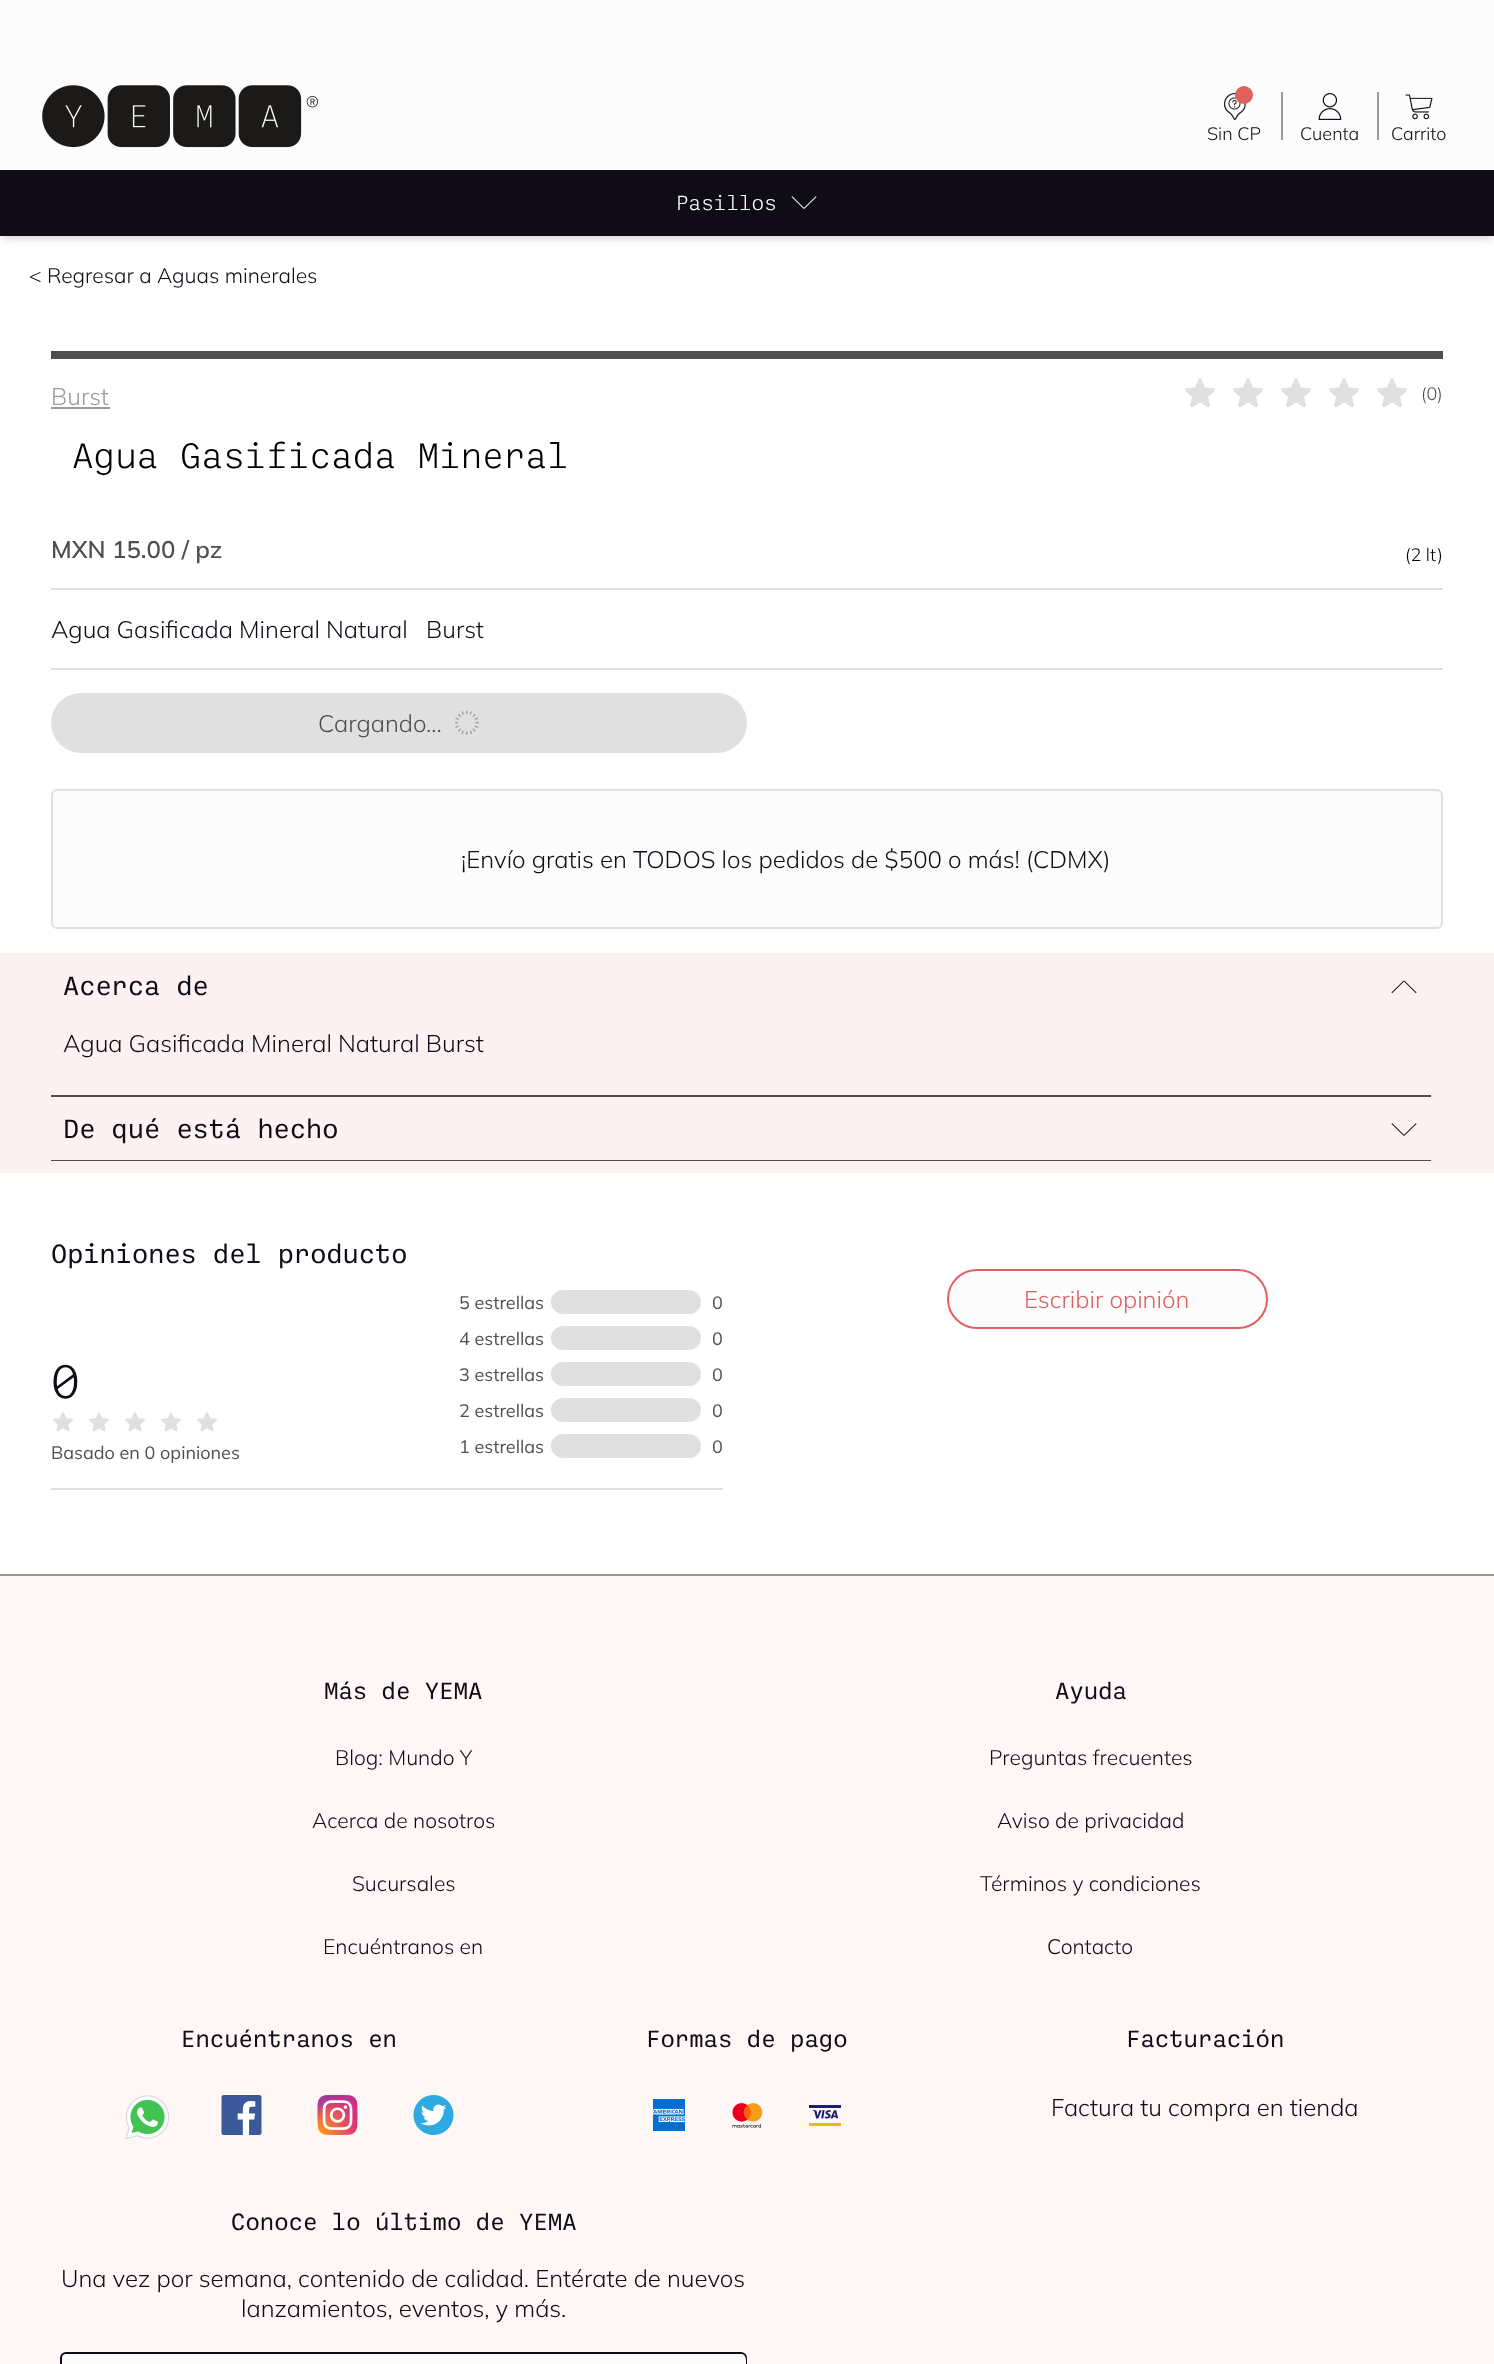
<svg xmlns="http://www.w3.org/2000/svg" xmlns:xlink="http://www.w3.org/1999/xlink" width="1494" height="2364" viewBox="0 0 1494 2364">
<style>
.cls-1{font:300 18px Mulish;fill:#100c17}
.cls-2{font:300 21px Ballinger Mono;fill:#fcfcfc}
.cls-3{font:300 21px Mulish;fill:#100c17}
.cls-4{font:300 24px Mulish;fill:#9a9a9a}
.cls-5{font:300 18px Mulish;fill:#4f4f4f}
.cls-6{font:300 36px Ballinger Mono;fill:#000000}
.cls-7{font:600 24px Mulish;fill:#4f4f4f}
.cls-8{font:300 18px Mulish;fill:#000000}
.cls-9{font:300 24px Mulish;fill:#100c17}
.cls-10{font:300 24px Mulish;fill:#4f4f4f}
.cls-11{font:27px Ballinger Mono;fill:#100c17}
.cls-12{font:300 48px Ballinger Mono;fill:#100c17}
.cls-13{font:18px Mulish;fill:#4f4f4f}
.cls-14{font:300 24px Mulish;fill:#e06060}
.cls-15{font:24px Ballinger Mono;fill:#100c17}
</style>
<rect width="100%" height="100%" fill="#ffffff"/>
<rect fill="#000000" fill-opacity="0.1" filter="blur(3px)" x="3" y="6" width="1488" height="230"/>
<rect fill="#000000" fill-opacity="0.1" filter="blur(4.5px)" x="2" y="8" width="1491" height="232"/>
<rect fill="#fcfcfc" x="0" y="2" width="1494" height="168"/>
<image xlink:href="image0.png" x="42" y="85" width="276" height="63"/>
<image xlink:href="image1.png" x="1224" y="93" width="22" height="27"/>
<circle fill="#e06060" cx="1244" cy="95" r="9"/>
<rect fill="#9a9a9a" x="1281" y="92" width="2" height="48"/>
<image xlink:href="image2.png" x="1318" y="93" width="24" height="27"/>
<rect fill="#9a9a9a" x="1377" y="92" width="2" height="48"/>
<image xlink:href="image3.png" x="1405" y="94" width="28" height="26"/>
<rect fill="#100c17" x="0" y="170" width="1494" height="66"/>
<image xlink:href="image4.png" x="791" y="196" width="26" height="13"/>
<rect fill="#4f4f4f" x="51" y="351" width="1392" height="8"/>
<rect fill="#9a9a9a" x="51" y="407" width="59" height="2"/>
<image xlink:href="image5.png" x="1185" y="378" width="30" height="29"/>
<image xlink:href="image5.png" x="1233" y="378" width="30" height="29"/>
<image xlink:href="image5.png" x="1281" y="378" width="30" height="29"/>
<image xlink:href="image5.png" x="1329" y="378" width="30" height="29"/>
<image xlink:href="image5.png" x="1377" y="378" width="30" height="29"/>
<rect fill="#e0e0e0" x="51" y="588" width="1392" height="2"/>
<rect fill="#e0e0e0" x="51" y="668" width="1392" height="2"/>
<rect fill="#e0e0e0" x="51" y="693" width="696" height="60" rx="30"/>
<image xlink:href="image6.png" x="455" y="710" width="24" height="25"/>
<rect fill="#fcfcfc" stroke="#e0e0e0" stroke-width="2" x="52" y="790" width="1390" height="138" rx="5"/>
<rect fill="#fdf2f1" x="0" y="953" width="1494" height="220"/>
<rect fill="#4f4f4f" x="51" y="1095" width="1380" height="2"/>
<image xlink:href="image7.png" x="1391" y="980" width="26" height="13"/>
<rect fill="#4f4f4f" x="51" y="1160" width="1380" height="1"/>
<image xlink:href="image8.png" x="1391" y="1123" width="26" height="13"/>
<image xlink:href="image9.png" x="53" y="1412" width="20" height="20"/>
<image xlink:href="image9.png" x="89" y="1412" width="20" height="20"/>
<image xlink:href="image9.png" x="125" y="1412" width="20" height="20"/>
<image xlink:href="image9.png" x="161" y="1412" width="20" height="20"/>
<image xlink:href="image9.png" x="197" y="1412" width="20" height="20"/>
<rect fill="#e0e0e0" x="551" y="1290" width="150" height="24" rx="12"/>
<rect fill="#e0e0e0" x="551" y="1326" width="150" height="24" rx="12"/>
<rect fill="#e0e0e0" x="551" y="1362" width="150" height="24" rx="12"/>
<rect fill="#e0e0e0" x="551" y="1398" width="150" height="24" rx="12"/>
<rect fill="#e0e0e0" x="551" y="1434" width="150" height="24" rx="12"/>
<rect fill="#e0e0e0" x="51" y="1488" width="672" height="2"/>
<rect fill="#fcfcfc" stroke="#e06060" stroke-width="2" x="948" y="1270" width="319" height="58" rx="29"/>
<rect fill="#fff7f6" x="0" y="1576" width="1494" height="788"/>
<rect fill="#9a9a9a" x="0" y="1574" width="1494" height="2"/>
<image xlink:href="image10.png" x="125" y="2095" width="45" height="44"/>
<image xlink:href="image11.png" x="221" y="2095" width="41" height="40"/>
<image xlink:href="image12.png" x="317" y="2095" width="41" height="40"/>
<image xlink:href="image13.png" x="413" y="2095" width="41" height="40"/>
<image xlink:href="image14.png" x="653" y="2099" width="32" height="32"/>
<image xlink:href="image15.png" x="732" y="2103" width="31" height="25"/>
<image xlink:href="image16.png" x="809" y="2105" width="32" height="21"/>
<rect fill="#fcfcfc" stroke="#100c17" stroke-width="2" x="61" y="2353" width="685" height="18" rx="5"/>
<rect fill="#fcfcfc" x="62" y="2354" width="684" height="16" rx="6"/>
<text class="cls-1" x="1207" y="140">Sin CP</text>
<text class="cls-1" x="1300" y="140">Cuenta</text>
<text class="cls-1" x="1391" y="140">Carrito</text>
<text class="cls-2" x="676" y="210">Pasillos</text>
<text class="cls-3" x="29" y="283">&lt; Regresar a Aguas minerales</text>
<text class="cls-4" x="51" y="405">Burst</text>
<text class="cls-5" x="1421" y="400">(0)</text>
<text class="cls-6" x="72" y="468">Agua Gasificada Mineral</text>
<text class="cls-7" x="51" y="558">MXN 15.00 / pz</text>
<text class="cls-8" x="1405" y="561">(2 lt)</text>
<text class="cls-9" xml:space="preserve" x="51" y="638">Agua Gasificada Mineral Natural   Burst</text>
<text class="cls-10" x="318" y="732">Cargando...</text>
<text class="cls-9" x="461" y="868">¡Envío gratis en TODOS los pedidos de $500 o más! (CDMX)</text>
<text class="cls-11" x="63" y="995">Acerca de</text>
<text class="cls-9" x="63" y="1052">Agua Gasificada Mineral Natural Burst</text>
<text class="cls-11" x="63" y="1138">De qué está hecho</text>
<text class="cls-11" x="51" y="1263">Opiniones del producto</text>
<text class="cls-12" x="51" y="1398">0</text>
<text class="cls-13" x="51" y="1459">Basado en 0 opiniones</text>
<text class="cls-13" x="459" y="1309">5 estrellas</text>
<text class="cls-13" x="712" y="1309">0</text>
<text class="cls-13" x="459" y="1345">4 estrellas</text>
<text class="cls-13" x="712" y="1345">0</text>
<text class="cls-13" x="459" y="1381">3 estrellas</text>
<text class="cls-13" x="712" y="1381">0</text>
<text class="cls-13" x="459" y="1417">2 estrellas</text>
<text class="cls-13" x="712" y="1417">0</text>
<text class="cls-13" x="459" y="1453">1 estrellas</text>
<text class="cls-13" x="712" y="1453">0</text>
<text class="cls-14" x="1024" y="1308">Escribir opinión</text>
<text class="cls-15" x="324" y="1699">Más de YEMA</text>
<text class="cls-3" x="335" y="1765">Blog: Mundo Y</text>
<text class="cls-3" x="312" y="1828">Acerca de nosotros</text>
<text class="cls-3" x="352" y="1891">Sucursales</text>
<text class="cls-3" x="323" y="1954">Encuéntranos en</text>
<text class="cls-15" x="1055" y="1699">Ayuda</text>
<text class="cls-3" x="989" y="1765">Preguntas frecuentes</text>
<text class="cls-3" x="997" y="1828">Aviso de privacidad</text>
<text class="cls-3" x="980" y="1891">Términos y condiciones</text>
<text class="cls-3" x="1047" y="1954">Contacto</text>
<text class="cls-15" x="181" y="2047">Encuéntranos en</text>
<text class="cls-15" x="646" y="2047">Formas de pago</text>
<text class="cls-15" x="1126" y="2047">Facturación</text>
<text class="cls-9" x="1051" y="2116">Factura tu compra en tienda</text>
<text class="cls-15" x="231" y="2230">Conoce lo último de YEMA</text>
<text class="cls-9" x="61" y="2287">Una vez por semana, contenido de calidad. Entérate de nuevos</text>
<text class="cls-9" x="241" y="2317">lanzamientos, eventos, y más.</text>
</svg>
